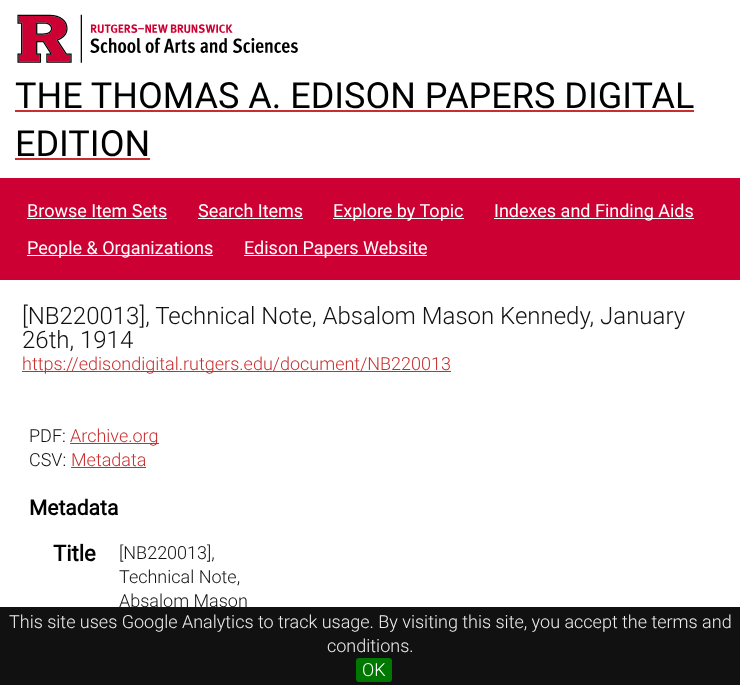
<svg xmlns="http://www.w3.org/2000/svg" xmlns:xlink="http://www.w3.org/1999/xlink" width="740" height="685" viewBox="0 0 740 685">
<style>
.cls-1{font:36px Roboto;fill:#000000}
.cls-2{font:18px Roboto;fill:#ffffff}
.cls-3{font:300 24px Roboto;fill:#111111}
.cls-4{font:300 18px Roboto;fill:#c72e2e}
.cls-5{font:300 18px Roboto;fill:#111111}
.cls-6{font:bold 21px Roboto;fill:#000000}
.cls-7{font:bold 22px Roboto;fill:#000000}
.cls-8{font:300 18px Roboto;fill:#eeeeee}
.cls-9{font:300 18px Roboto;fill:#ffffff}
</style>
<rect width="100%" height="100%" fill="#ffffff"/>
<image xlink:href="image0.png" x="17" y="14" width="281" height="49"/>
<rect fill="#c72e2e" x="15" y="110" width="679" height="2"/>
<rect fill="#c72e2e" x="15" y="158" width="135" height="2"/>
<rect fill="#cc0033" x="0" y="178" width="740" height="102"/>
<rect fill="#ffffff" x="27" y="218" width="140" height="1"/>
<rect fill="#ffffff" x="198" y="218" width="105" height="1"/>
<rect fill="#ffffff" x="333" y="218" width="131" height="1"/>
<rect fill="#ffffff" x="494" y="218" width="200" height="1"/>
<rect fill="#ffffff" x="27" y="255" width="186" height="1"/>
<rect fill="#ffffff" x="244" y="255" width="183" height="1"/>
<rect fill="#c72e2e" x="22" y="371" width="429" height="1"/>
<rect fill="#c72e2e" x="70" y="443" width="89" height="1"/>
<rect fill="#c72e2e" x="71" y="467" width="75" height="1"/>
<rect fill="#111111" x="0" y="607" width="740" height="78"/>
<rect fill="#007700" x="356" y="658" width="36" height="24" rx="3"/>
<text class="cls-1"><tspan x="15" y="108">THE THOMAS A. EDISON PAPERS DIGITAL</tspan><tspan x="15" y="156">EDITION</tspan></text>
<text class="cls-2" x="27" y="217">Browse Item Sets</text>
<text class="cls-2" x="198" y="217">Search Items</text>
<text class="cls-2" x="333" y="217">Explore by Topic</text>
<text class="cls-2" x="494" y="217">Indexes and Finding Aids</text>
<text class="cls-2" x="27" y="254">People &amp; Organizations</text>
<text class="cls-2" x="244" y="254">Edison Papers Website</text>
<text class="cls-3"><tspan x="22" y="324">[NB220013], Technical Note, Absalom Mason Kennedy, January</tspan><tspan x="22" y="348">26th, 1914</tspan></text>
<text class="cls-4" x="22" y="370">https://edisondigital.rutgers.edu/document/NB220013</text>
<text class="cls-5" x="29" y="442">PDF:</text>
<text class="cls-4" x="70" y="442">Archive.org</text>
<text class="cls-5" x="29" y="466">CSV:</text>
<text class="cls-4" x="71" y="466">Metadata</text>
<text class="cls-6" x="29" y="515">Metadata</text>
<text class="cls-7" x="53" y="561">Title</text>
<text class="cls-5"><tspan x="119" y="559">[NB220013],</tspan><tspan x="119" y="583">Technical Note,</tspan><tspan x="119" y="607">Absalom Mason</tspan></text>
<text class="cls-8" x="9" y="628">This site uses Google Analytics to track usage. By visiting this site, you accept the terms and</text>
<text class="cls-8" x="327" y="652">conditions.</text>
<text class="cls-9" x="362" y="676">OK</text>
</svg>
